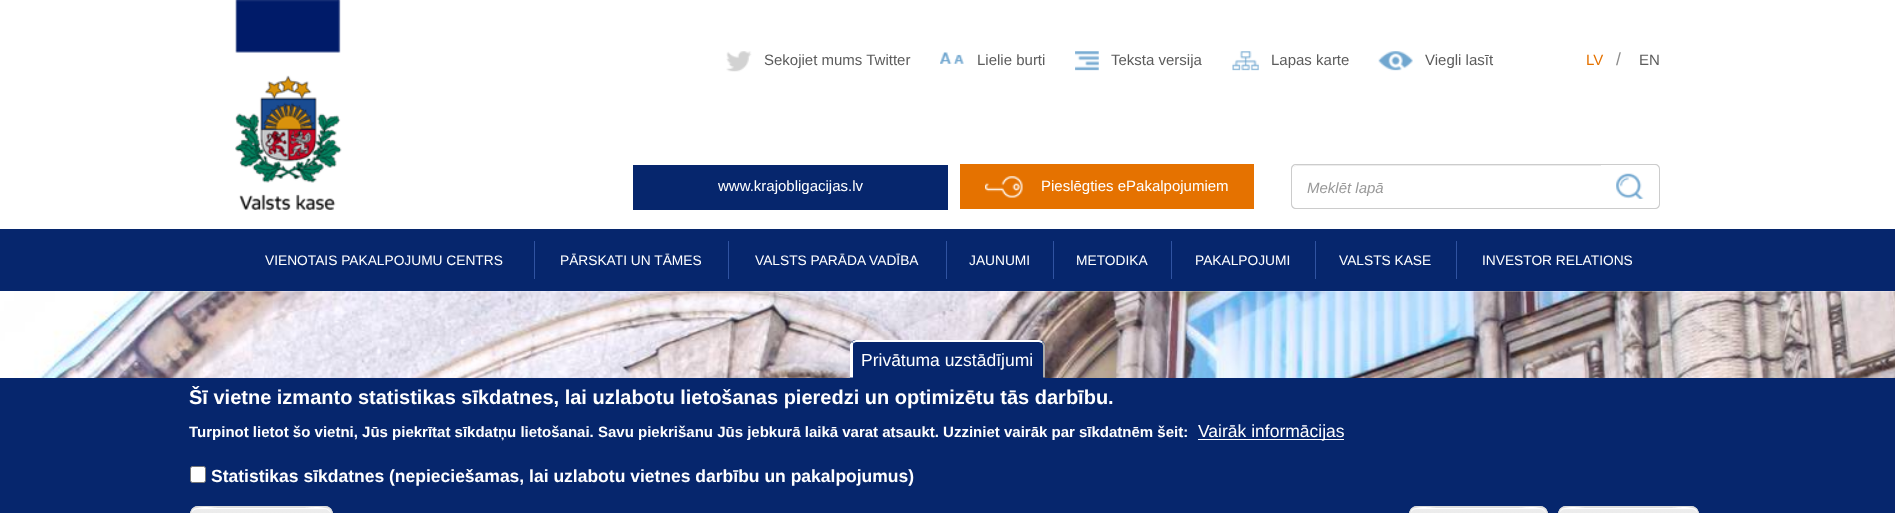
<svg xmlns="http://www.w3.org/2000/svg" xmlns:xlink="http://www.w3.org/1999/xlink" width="1895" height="513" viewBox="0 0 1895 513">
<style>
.cls-1{font:15px Liberation Sans;fill:#5c5c5c}
.cls-2{font:15px Liberation Sans;fill:#e57200}
.cls-3{font:17.5px Liberation Sans;fill:#8d8d8d}
.cls-4{font:15px Liberation Sans;fill:#ffffff}
.cls-5{font:italic 15px Liberation Sans;fill:#999999}
.cls-6{font:13.75px Liberation Sans;fill:#ffffff}
.cls-7{font:17.5px Liberation Sans;fill:#ffffff}
.cls-8{font:bold 20px Liberation Sans;fill:#ffffff}
.cls-9{font:bold 15px Liberation Sans;fill:#ffffff}
.cls-10{font:bold 17.5px Liberation Sans;fill:#ffffff}
</style>
<defs>
<clipPath id="clip1"><rect x="190" y="506" width="143" height="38" rx="8"/></clipPath>
<linearGradient id="g1" gradientUnits="userSpaceOnUse" x1="261" y1="473" x2="261" y2="508"><stop offset="0.05" stop-color="#ededed"/><stop offset="1" stop-color="#dfdfdf"/></linearGradient>
<linearGradient id="g2" gradientUnits="userSpaceOnUse" x1="261" y1="508" x2="261" y2="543"><stop offset="0.05" stop-color="#ededed"/><stop offset="1" stop-color="#dfdfdf"/></linearGradient>
<clipPath id="clip2"><rect x="1409" y="506" width="139" height="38" rx="8"/></clipPath>
<linearGradient id="g3" gradientUnits="userSpaceOnUse" x1="1478" y1="473" x2="1478" y2="508"><stop offset="0.05" stop-color="#ededed"/><stop offset="1" stop-color="#dfdfdf"/></linearGradient>
<linearGradient id="g4" gradientUnits="userSpaceOnUse" x1="1478" y1="508" x2="1478" y2="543"><stop offset="0.05" stop-color="#ededed"/><stop offset="1" stop-color="#dfdfdf"/></linearGradient>
<clipPath id="clip3"><rect x="1558" y="506" width="141" height="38" rx="8"/></clipPath>
<linearGradient id="g5" gradientUnits="userSpaceOnUse" x1="1628" y1="473" x2="1628" y2="508"><stop offset="0.05" stop-color="#ededed"/><stop offset="1" stop-color="#dfdfdf"/></linearGradient>
<linearGradient id="g6" gradientUnits="userSpaceOnUse" x1="1628" y1="508" x2="1628" y2="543"><stop offset="0.05" stop-color="#ededed"/><stop offset="1" stop-color="#dfdfdf"/></linearGradient>
</defs>
<rect width="100%" height="100%" fill="#ffffff"/>
<image xlink:href="image0.png" x="235" y="0" width="107" height="210"/>
<image xlink:href="image1.png" x="726" y="51" width="26" height="21"/>
<image xlink:href="image2.png" x="940" y="52" width="24" height="12"/>
<image xlink:href="image3.png" x="1075" y="51" width="24" height="20"/>
<image xlink:href="image4.png" x="1232" y="51" width="27" height="20"/>
<image xlink:href="image5.png" x="1378" y="51" width="35" height="20"/>
<rect fill="#06266d" x="633" y="165" width="315" height="45"/>
<rect fill="#e57200" x="960" y="164" width="294" height="45"/>
<image xlink:href="image6.png" x="985" y="176" width="38" height="22"/>
<path fill="#ececec" d="M1296 166H1601V165H1297C1296 165 1294 166 1294 167Z"/>
<path fill="#cccccc" fill-rule="evenodd" d="M1296 164H1601V209H1296C1293 209 1291 207 1291 204V169C1291 166 1293 164 1296 164ZM1296 165H1601V208H1296C1294 208 1292 206 1292 204V169C1292 167 1294 165 1296 165Z"/>
<path fill="#cccccc" fill-rule="evenodd" d="M1601 164H1655C1658 164 1660 166 1660 169V204C1660 207 1658 209 1655 209H1601ZM1601 165H1655C1657 165 1659 167 1659 169V204C1659 206 1657 208 1655 208H1601Z"/>
<image xlink:href="image7.png" x="1616" y="173" width="28" height="26"/>
<rect fill="#06266d" x="0" y="229" width="1895" height="62"/>
<rect fill="#3053a1" x="534" y="241" width="1" height="38"/>
<rect fill="#3053a1" x="728" y="241" width="1" height="38"/>
<rect fill="#3053a1" x="946" y="241" width="1" height="38"/>
<rect fill="#3053a1" x="1053" y="241" width="1" height="38"/>
<rect fill="#3053a1" x="1171" y="241" width="1" height="38"/>
<rect fill="#3053a1" x="1315" y="241" width="1" height="38"/>
<rect fill="#3053a1" x="1456" y="241" width="1" height="38"/>
<image xlink:href="image8.png" x="0" y="291" width="1895" height="87"/>
<rect fill="#06266d" x="0" y="378" width="1895" height="135"/>
<path fill="#06266d" d="M856 340H1039C1042.5 340 1045 342.5 1045 346V378H850V346C850 342.5 852.5 340 856 340Z"/>
<path fill="#ffffff" d="M856 340C855 340 853 341 852 342L854 343C854 343 855 342 856 342H1039C1040 342 1041 343 1042 343L1043 342C1042 341 1041 340 1039 340Z"/>
<path fill="#aaaaaa" d="M1043 377.5V346C1043 345 1042.5 344 1042 343.5L1043 342C1044.5 343 1045 344.5 1045 346V377.5Z"/>
<path fill="#ffffff" d="M850 377.5V344.5C850.5 343.5 851 342.5 852 342L853.5 343.5C853 344 853 345 853 346V377.5Z"/>
<rect fill="#ffffff" x="1198" y="439" width="146" height="1"/>
<rect fill="#ffffff" stroke="#767676" x="190.5" y="466.5" width="15" height="16" rx="2"/>
<g clip-path="url(#clip1)">
<rect fill="url(#g1)" x="190" y="506" width="143" height="2"/>
<rect fill="url(#g2)" x="190" y="508" width="143" height="5"/>
</g>
<path fill="#ffffff" d="M198 509H325C328 509 331 512 331 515C331 503 308 508 304 508H218C214 508 191 503 191 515C191 512 194 509 198 509Z"/>
<rect fill="none" stroke="#dcdcdc" x="190.5" y="506.5" width="142" height="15" rx="7.5"/>
<g clip-path="url(#clip2)">
<rect fill="url(#g3)" x="1409" y="506" width="139" height="2"/>
<rect fill="url(#g4)" x="1409" y="508" width="139" height="5"/>
</g>
<path fill="#ffffff" d="M1416 509H1540C1543 509 1546 512 1546 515C1546 503 1524 508 1519 508H1437C1432 508 1410 503 1410 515C1410 512 1413 509 1416 509Z"/>
<rect fill="none" stroke="#dcdcdc" x="1409.5" y="506.5" width="138" height="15" rx="7.5"/>
<g clip-path="url(#clip3)">
<rect fill="url(#g5)" x="1558" y="506" width="141" height="2"/>
<rect fill="url(#g6)" x="1558" y="508" width="141" height="5"/>
</g>
<path fill="#ffffff" d="M1565 509H1691C1695 509 1698 512 1698 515C1698 503 1676 508 1671 508H1586C1581 508 1559 503 1559 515C1559 512 1562 509 1565 509Z"/>
<rect fill="none" stroke="#dcdcdc" x="1558.5" y="506.5" width="140" height="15" rx="7.5"/>
<text class="cls-1" x="764" y="65">Sekojiet mums Twitter</text>
<text class="cls-1" x="977" y="65">Lielie burti</text>
<text class="cls-1" x="1111" y="65">Teksta versija</text>
<text class="cls-1" x="1271" y="65">Lapas karte</text>
<text class="cls-1" x="1425" y="65">Viegli lasīt</text>
<text class="cls-2" x="1586" y="65">LV</text>
<text class="cls-3" x="1616" y="65">/</text>
<text class="cls-1" x="1639" y="65">EN</text>
<text class="cls-4" x="718" y="191">www.krajobligacijas.lv</text>
<text class="cls-4" x="1041" y="191">Pieslēgties ePakalpojumiem</text>
<text class="cls-5" x="1307" y="193">Meklēt lapā</text>
<text class="cls-6" x="265" y="265">VIENOTAIS PAKALPOJUMU CENTRS</text>
<text class="cls-6" x="560" y="265">PĀRSKATI UN TĀMES</text>
<text class="cls-6" x="755" y="265">VALSTS PARĀDA VADĪBA</text>
<text class="cls-6" x="969" y="265">JAUNUMI</text>
<text class="cls-6" x="1076" y="265">METODIKA</text>
<text class="cls-6" x="1195" y="265">PAKALPOJUMI</text>
<text class="cls-6" x="1339" y="265">VALSTS KASE</text>
<text class="cls-6" x="1482" y="265">INVESTOR RELATIONS</text>
<text class="cls-7" x="861" y="366">Privātuma uzstādījumi</text>
<text class="cls-8" x="189" y="404">Šī vietne izmanto statistikas sīkdatnes, lai uzlabotu lietošanas pieredzi un optimizētu tās darbību.</text>
<text class="cls-9" x="189" y="437">Turpinot lietot šo vietni, Jūs piekrītat sīkdatņu lietošanai. Savu piekrišanu Jūs jebkurā laikā varat atsaukt. Uzziniet vairāk par sīkdatnēm šeit:</text>
<text class="cls-7" x="1198" y="437">Vairāk informācijas</text>
<text class="cls-10" x="211" y="482">Statistikas sīkdatnes (nepieciešamas, lai uzlabotu vietnes darbību un pakalpojumus)</text>
</svg>
